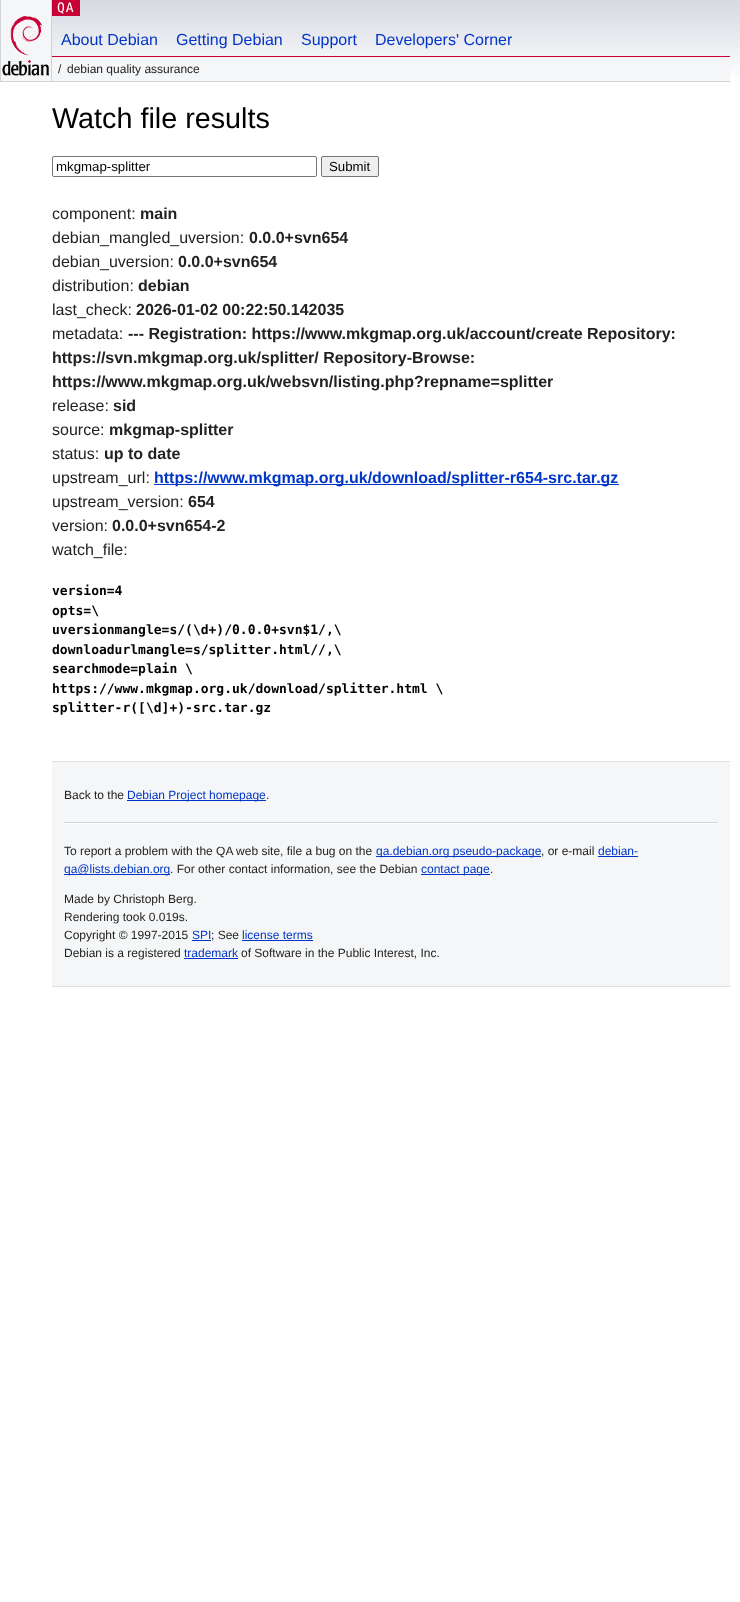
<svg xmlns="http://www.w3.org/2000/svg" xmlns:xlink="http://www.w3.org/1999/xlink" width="740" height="1602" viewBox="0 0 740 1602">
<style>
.cls-1{font:13px DejaVu Sans Mono;letter-spacing:1px;fill:#ffffff}
.cls-2{font:16px Liberation Sans;fill:#0035c7}
.cls-3{font:12px Liberation Sans;fill:#222222}
.cls-4{font:28.75px Liberation Sans;fill:#000000}
.cls-5{font:13.25px Liberation Sans;fill:#000000}
.cls-6{font:16px Liberation Sans;fill:#222222}
.cls-7{font:bold 16px Liberation Sans;fill:#222222}
.cls-8{font:bold 16px Liberation Sans;fill:#0035c7}
.cls-9{font:bold 13px DejaVu Sans Mono;fill:#000000}
.cls-10{font:12px Liberation Sans;fill:#0035c7}
</style>
<defs>
<linearGradient id="g1" gradientUnits="userSpaceOnUse" x1="370" y1="0" x2="370" y2="82"><stop offset="0" stop-color="#d7d9e2"/><stop offset="1" stop-color="#ffffff"/></linearGradient>
</defs>
<rect width="100%" height="100%" fill="#ffffff"/>
<rect fill="url(#g1)" x="52" y="0" width="688" height="77"/>
<rect fill="#f5f6f7" x="1" y="0" width="50" height="81"/>
<rect fill="#d2d3d7" x="51" y="0" width="1" height="82"/>
<rect fill="#d2d3d7" x="0" y="81" width="52" height="1"/>
<rect fill="#d2d3d7" x="0" y="0" width="1" height="82"/>
<image xlink:href="image0.png" x="2" y="16" width="47" height="60"/>
<rect fill="#c70036" x="52" y="0" width="28" height="16"/>
<rect fill="#c70036" x="52" y="56" width="678" height="1"/>
<rect fill="#f5f6f7" x="52" y="66" width="678" height="15"/>
<rect fill="#d2d3d7" x="52" y="81" width="678" height="1"/>
<rect fill="none" stroke="#767676" x="52.5" y="156.5" width="264" height="20" rx="1.5"/>
<rect fill="#efefef" stroke="#767676" x="321.5" y="156.5" width="57" height="20" rx="1.5"/>
<rect fill="#0035c7" x="154" y="484" width="465" height="1"/>
<rect fill="#f5f6f7" x="52" y="762" width="678" height="224"/>
<rect fill="#dfdfe0" x="52" y="761" width="678" height="1"/>
<rect fill="#dfdfe0" x="52" y="986" width="678" height="1"/>
<rect fill="#0035c7" x="127" y="800" width="139" height="1"/>
<rect fill="#d2d3d7" x="64" y="822" width="654" height="1"/>
<rect fill="#ffffff" x="64" y="823" width="654" height="1"/>
<rect fill="#0035c7" x="376" y="856" width="165" height="1"/>
<rect fill="#0035c7" x="598" y="856" width="40" height="1"/>
<rect fill="#0035c7" x="64" y="874" width="106" height="1"/>
<rect fill="#0035c7" x="421" y="874" width="69" height="1"/>
<rect fill="#0035c7" x="192" y="940" width="19" height="1"/>
<rect fill="#0035c7" x="242" y="940" width="71" height="1"/>
<rect fill="#0035c7" x="184" y="958" width="54" height="1"/>
<text class="cls-1" x="57" y="12">QA</text>
<text class="cls-2" x="61" y="45">About Debian</text>
<text class="cls-2" x="176" y="45">Getting Debian</text>
<text class="cls-2" x="301" y="45">Support</text>
<text class="cls-2" x="375" y="45">Developers' Corner</text>
<text class="cls-3" x="58" y="73">/</text>
<text class="cls-3" x="67" y="73">debian quality assurance</text>
<text class="cls-4" x="52" y="128">Watch file results</text>
<text class="cls-5" x="56" y="171">mkgmap-splitter</text>
<text class="cls-5" x="329" y="171">Submit</text>
<text class="cls-6" x="52" y="219">component:</text>
<text class="cls-7" x="140" y="219">main</text>
<text class="cls-6" x="52" y="243">debian_mangled_uversion:</text>
<text class="cls-7" x="249" y="243">0.0.0+svn654</text>
<text class="cls-6" x="52" y="267">debian_uversion:</text>
<text class="cls-7" x="178" y="267">0.0.0+svn654</text>
<text class="cls-6" x="52" y="291">distribution:</text>
<text class="cls-7" x="138" y="291">debian</text>
<text class="cls-6" x="52" y="315">last_check:</text>
<text class="cls-7" x="136" y="315">2026-01-02 00:22:50.142035</text>
<text class="cls-6" x="52" y="339">metadata:</text>
<text class="cls-7" x="128" y="339">--- Registration: https://www.mkgmap.org.uk/account/create Repository:</text>
<text class="cls-7"><tspan x="52" y="363">https://svn.mkgmap.org.uk/splitter/ Repository-Browse:</tspan><tspan x="52" y="387">https://www.mkgmap.org.uk/websvn/listing.php?repname=splitter</tspan></text>
<text class="cls-6" x="52" y="411">release:</text>
<text class="cls-7" x="113" y="411">sid</text>
<text class="cls-6" x="52" y="435">source:</text>
<text class="cls-7" x="109" y="435">mkgmap-splitter</text>
<text class="cls-6" x="52" y="459">status:</text>
<text class="cls-7" x="104" y="459">up to date</text>
<text class="cls-6" x="52" y="483">upstream_url:</text>
<text class="cls-8" x="154" y="483">https://www.mkgmap.org.uk/download/splitter-r654-src.tar.gz</text>
<text class="cls-6" x="52" y="507">upstream_version:</text>
<text class="cls-7" x="188" y="507">654</text>
<text class="cls-6" x="52" y="531">version:</text>
<text class="cls-7" x="112" y="531">0.0.0+svn654-2</text>
<text class="cls-6" x="52" y="555">watch_file:</text>
<text class="cls-9"><tspan x="52" y="595">version=4</tspan><tspan x="52" y="615">opts=\</tspan><tspan x="52" y="634">uversionmangle=s/(\d+)/0.0.0+svn$1/,\</tspan><tspan x="52" y="654">downloadurlmangle=s/splitter.html//,\</tspan><tspan x="52" y="673">searchmode=plain \</tspan><tspan x="52" y="693">https://www.mkgmap.org.uk/download/splitter.html \</tspan><tspan x="52" y="712">splitter-r([\d]+)-src.tar.gz</tspan></text>
<text class="cls-3" x="64" y="799">Back to the</text>
<text class="cls-10" x="127" y="799">Debian Project homepage</text>
<text class="cls-3" x="266" y="799">.</text>
<text class="cls-3" x="64" y="855">To report a problem with the QA web site, file a bug on the</text>
<text class="cls-10" x="376" y="855">qa.debian.org pseudo-package</text>
<text class="cls-3" x="541" y="855">, or e-mail</text>
<text class="cls-10" x="598" y="855">debian-</text>
<text class="cls-10" x="64" y="873">qa@lists.debian.org</text>
<text class="cls-3" x="170" y="873">. For other contact information, see the Debian</text>
<text class="cls-10" x="421" y="873">contact page</text>
<text class="cls-3" x="490" y="873">.</text>
<text class="cls-3"><tspan x="64" y="903">Made by Christoph Berg.</tspan><tspan x="64" y="921">Rendering took 0.019s.</tspan><tspan x="64" y="939">Copyright © 1997-2015</tspan></text>
<text class="cls-10" x="192" y="939">SPI</text>
<text class="cls-3" x="211" y="939">; See</text>
<text class="cls-10" x="242" y="939">license terms</text>
<text class="cls-3" x="64" y="957">Debian is a registered</text>
<text class="cls-10" x="184" y="957">trademark</text>
<text class="cls-3" x="241" y="957">of Software in the Public Interest, Inc.</text>
</svg>
